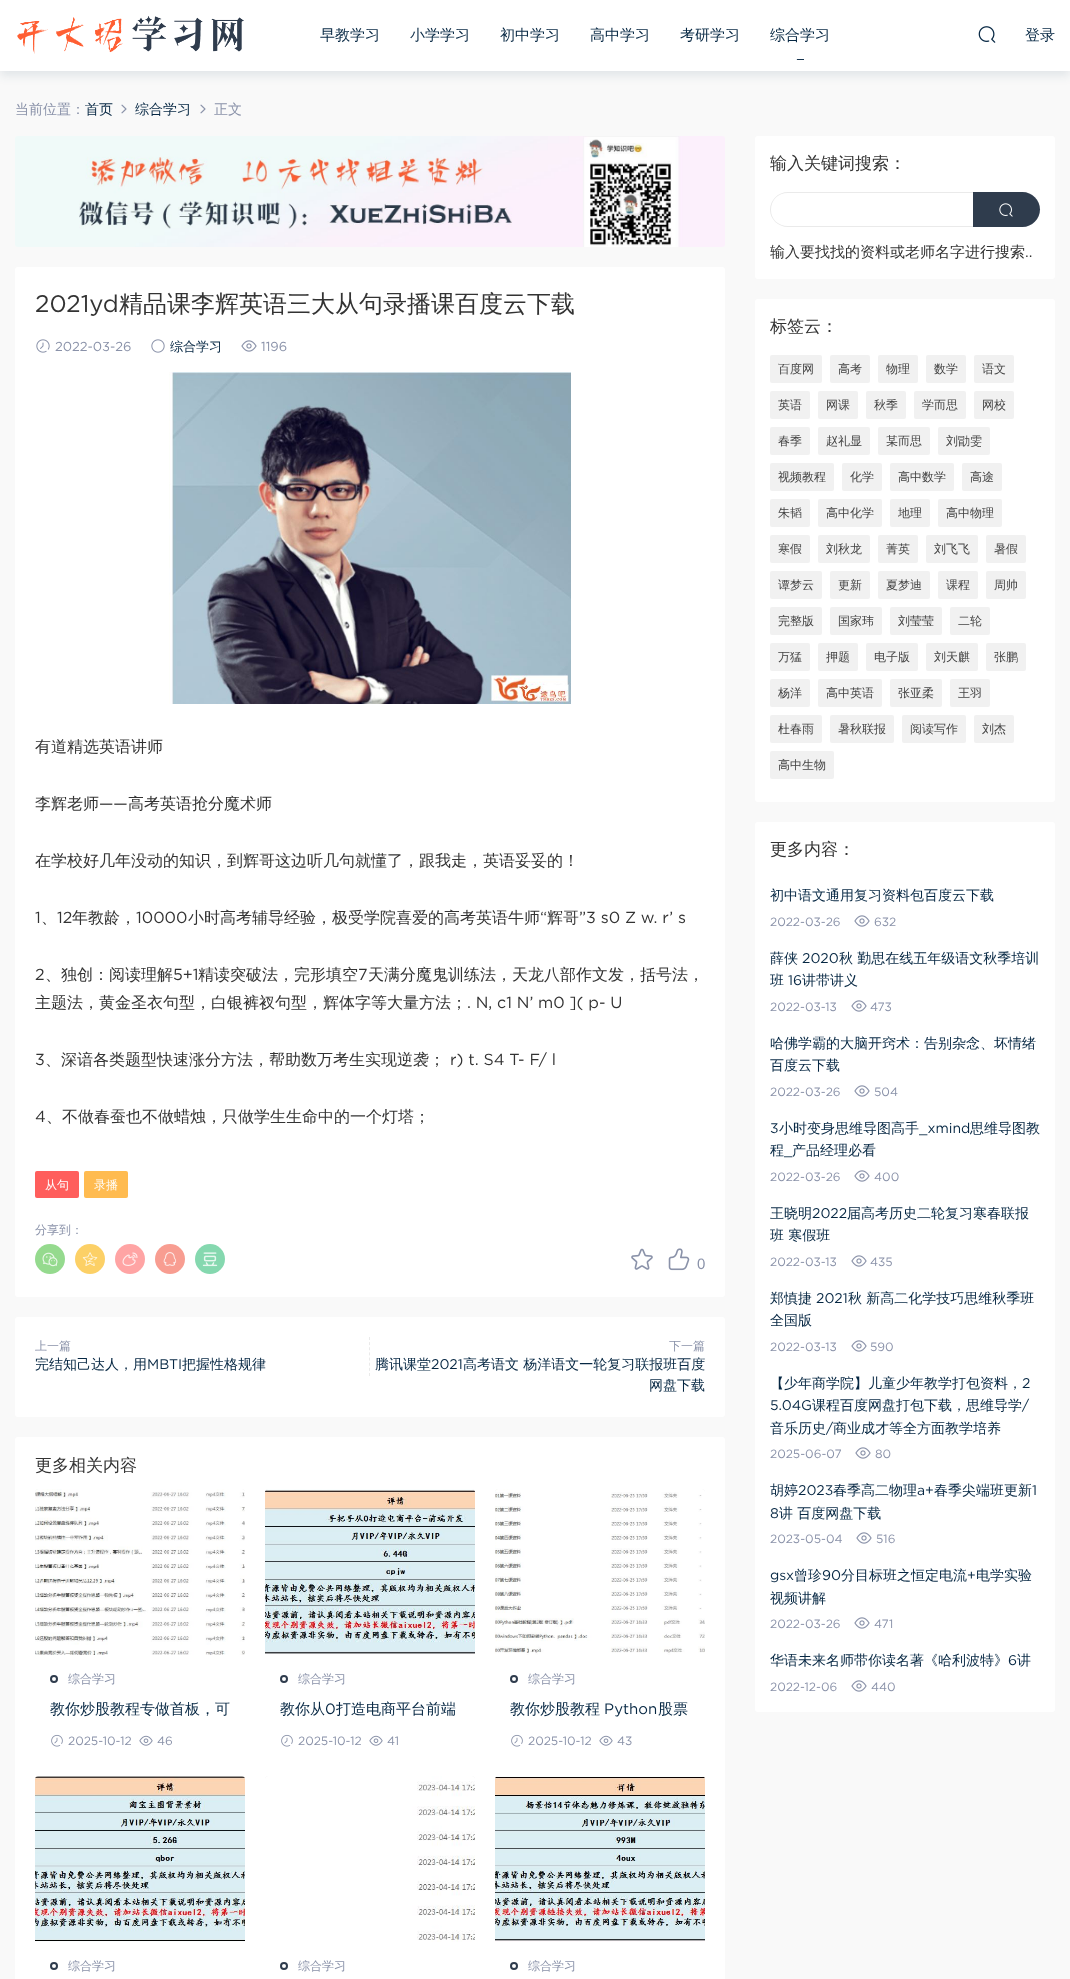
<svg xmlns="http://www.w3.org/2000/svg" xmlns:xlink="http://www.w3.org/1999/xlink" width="1070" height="1979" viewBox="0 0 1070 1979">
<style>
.cls-1{font:500 15px WenQuanYi Zen Hei;fill:#062743}
.cls-2{font:500 14px WenQuanYi Zen Hei;fill:#8a92a9}
.cls-3{font:500 14px WenQuanYi Zen Hei;fill:#062743}
.cls-4{font:24px Gotham;fill:#333333}
.cls-5{font:500 24px WenQuanYi Zen Hei;fill:#333333}
.cls-6{font:13px Gotham;fill:#8a92a9}
.cls-7{font:500 13px WenQuanYi Zen Hei;fill:#062743}
.cls-8{font:500 16px WenQuanYi Zen Hei;fill:#333333}
.cls-9{font:16px Gotham;fill:#333333}
.cls-10{font:500 12px WenQuanYi Zen Hei;fill:#ffffff}
.cls-11{font:500 12px WenQuanYi Zen Hei;fill:#8a92a9}
.cls-12{font:15px Liberation Sans;fill:#8a92a9}
.cls-13{font:14px Gotham;fill:#062743}
.cls-14{font:500 17px WenQuanYi Zen Hei;fill:#333333}
.cls-15{font:12px Gotham;fill:#8a92a9}
.cls-16{font:15px Gotham;fill:#062743}
.cls-17{font:500 15px WenQuanYi Zen Hei;fill:#333333}
.cls-18{font:15px Gotham;fill:#333333}
.cls-19{font:500 12px WenQuanYi Zen Hei;fill:#444444}
</style>
<rect width="100%" height="100%" fill="#f9f9f9"/>
<rect fill="#113a5d" fill-opacity="0.1" filter="blur(5px)" x="0" y="5" width="1070" height="71"/>
<rect fill="#ffffff" x="0" y="0" width="1070" height="71"/>
<image xlink:href="image0.png" x="17" y="16" width="227" height="38"/>
<image xlink:href="image1.png" x="796" y="59" width="8" height="1"/>
<image xlink:href="image2.png" x="978" y="26" width="18" height="17"/>
<image xlink:href="image3.png" x="121" y="104" width="6" height="10"/>
<image xlink:href="image3.png" x="200" y="104" width="6" height="10"/>
<image xlink:href="image4.png" x="15" y="136" width="710" height="111"/>
<rect fill="#ffffff" x="15" y="267" width="710" height="1030" rx="3"/>
<image xlink:href="image5.png" x="36" y="339" width="14" height="14"/>
<image xlink:href="image6.png" x="151" y="339" width="14" height="14"/>
<image xlink:href="image7.png" x="241" y="340" width="16" height="12"/>
<image xlink:href="image8.png" x="169" y="372" width="402" height="332"/>
<rect fill="#ff5e5c" x="35" y="1171" width="44" height="27" rx="2"/>
<rect fill="#ffbb50" x="84" y="1171" width="44" height="27" rx="2"/>
<circle fill="#95da8e" cx="50" cy="1259" r="15"/>
<image xlink:href="image9.png" x="42" y="1252" width="16" height="15"/>
<circle fill="#fcd066" cx="90" cy="1259" r="15"/>
<image xlink:href="image10.png" x="82" y="1252" width="16" height="14"/>
<circle fill="#ffa4a4" cx="130" cy="1259" r="15"/>
<image xlink:href="image11.png" x="122" y="1252" width="16" height="14"/>
<circle fill="#f89d91" cx="170" cy="1259" r="15"/>
<image xlink:href="image12.png" x="163" y="1252" width="14" height="14"/>
<circle fill="#85d8af" cx="210" cy="1259" r="15"/>
<image xlink:href="image13.png" x="202" y="1252" width="16" height="15"/>
<image xlink:href="image14.png" x="631" y="1248" width="22" height="22"/>
<image xlink:href="image15.png" x="668" y="1248" width="22" height="23"/>
<rect fill="#ffffff" x="15" y="1317" width="710" height="100" rx="3"/>
<path fill="none" stroke="#eaeaea" stroke-dasharray="3 2.14" d="M369.5 1337V1376"/>
<rect fill="#ffffff" x="15" y="1437" width="710" height="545" rx="3"/>
<path fill="#f0f0f0" d="M38 1489H242C243.5 1489 245 1490.5 245 1492V1655H35V1492C35 1490.5 36.5 1489 38 1489Z"/>
<image xlink:href="image16.png" x="35" y="1489" width="210" height="166"/>
<circle fill="none" stroke="#2f3c4d" stroke-width="2" cx="54" cy="1679" r="3"/>
<image xlink:href="image17.png" x="51" y="1734" width="12" height="13"/>
<image xlink:href="image18.png" x="139" y="1735" width="14" height="11"/>
<path fill="#f0f0f0" d="M268 1489H472C473.5 1489 475 1490.5 475 1492V1655H265V1492C265 1490.5 266.5 1489 268 1489Z"/>
<image xlink:href="image19.png" x="265" y="1489" width="210" height="166"/>
<circle fill="none" stroke="#2f3c4d" stroke-width="2" cx="284" cy="1679" r="3"/>
<image xlink:href="image17.png" x="281" y="1734" width="12" height="13"/>
<image xlink:href="image18.png" x="369" y="1735" width="14" height="11"/>
<path fill="#f0f0f0" d="M498 1489H702C703.5 1489 705 1490.5 705 1492V1655H495V1492C495 1490.5 496.5 1489 498 1489Z"/>
<image xlink:href="image20.png" x="495" y="1489" width="210" height="166"/>
<circle fill="none" stroke="#2f3c4d" stroke-width="2" cx="514" cy="1679" r="3"/>
<image xlink:href="image17.png" x="511" y="1734" width="12" height="13"/>
<image xlink:href="image18.png" x="599" y="1735" width="14" height="11"/>
<path fill="#f0f0f0" d="M38 1776H242C243.5 1776 245 1777.5 245 1779V1942H35V1779C35 1777.5 36.5 1776 38 1776Z"/>
<image xlink:href="image21.png" x="35" y="1776" width="210" height="166"/>
<circle fill="none" stroke="#2f3c4d" stroke-width="2" cx="54" cy="1966" r="3"/>
<path fill="#f0f0f0" d="M268 1776H472C473.5 1776 475 1777.5 475 1779V1942H265V1779C265 1777.5 266.5 1776 268 1776Z"/>
<image xlink:href="image22.png" x="265" y="1776" width="210" height="166"/>
<circle fill="none" stroke="#2f3c4d" stroke-width="2" cx="284" cy="1966" r="3"/>
<path fill="#f0f0f0" d="M498 1776H702C703.5 1776 705 1777.5 705 1779V1942H495V1779C495 1777.5 496.5 1776 498 1776Z"/>
<image xlink:href="image23.png" x="495" y="1776" width="210" height="166"/>
<circle fill="none" stroke="#2f3c4d" stroke-width="2" cx="514" cy="1966" r="3"/>
<rect fill="#ffffff" x="755" y="136" width="300" height="143" rx="3"/>
<path fill="#eaeaea" fill-rule="evenodd" d="M788 192H973V227H788C778 227 770 219 770 210C770 200 778 192 788 192ZM788 193H973V226H788C778 226 771 219 771 210C771 200 778 193 788 193Z"/>
<path fill="#2f3c4d" d="M973 192H1022.5C1032 192 1040 200 1040 209.5C1040 219 1032 227 1022.5 227H973Z"/>
<image xlink:href="image24.png" x="999" y="203" width="14" height="14"/>
<rect fill="#ffffff" x="755" y="299" width="300" height="503" rx="3"/>
<rect fill="#f1f1f1" x="770" y="355" width="52" height="28" rx="2"/>
<rect fill="#f1f1f1" x="830" y="355" width="40" height="28" rx="2"/>
<rect fill="#f1f1f1" x="878" y="355" width="40" height="28" rx="2"/>
<rect fill="#f1f1f1" x="926" y="355" width="40" height="28" rx="2"/>
<rect fill="#f1f1f1" x="974" y="355" width="40" height="28" rx="2"/>
<rect fill="#f1f1f1" x="770" y="391" width="40" height="28" rx="2"/>
<rect fill="#f1f1f1" x="818" y="391" width="40" height="28" rx="2"/>
<rect fill="#f1f1f1" x="866" y="391" width="40" height="28" rx="2"/>
<rect fill="#f1f1f1" x="914" y="391" width="52" height="28" rx="2"/>
<rect fill="#f1f1f1" x="974" y="391" width="40" height="28" rx="2"/>
<rect fill="#f1f1f1" x="770" y="427" width="40" height="28" rx="2"/>
<rect fill="#f1f1f1" x="818" y="427" width="52" height="28" rx="2"/>
<rect fill="#f1f1f1" x="878" y="427" width="52" height="28" rx="2"/>
<rect fill="#f1f1f1" x="938" y="427" width="52" height="28" rx="2"/>
<rect fill="#f1f1f1" x="770" y="463" width="64" height="28" rx="2"/>
<rect fill="#f1f1f1" x="842" y="463" width="40" height="28" rx="2"/>
<rect fill="#f1f1f1" x="890" y="463" width="64" height="28" rx="2"/>
<rect fill="#f1f1f1" x="962" y="463" width="40" height="28" rx="2"/>
<rect fill="#f1f1f1" x="770" y="499" width="40" height="28" rx="2"/>
<rect fill="#f1f1f1" x="818" y="499" width="64" height="28" rx="2"/>
<rect fill="#f1f1f1" x="890" y="499" width="40" height="28" rx="2"/>
<rect fill="#f1f1f1" x="938" y="499" width="64" height="28" rx="2"/>
<rect fill="#f1f1f1" x="770" y="535" width="40" height="28" rx="2"/>
<rect fill="#f1f1f1" x="818" y="535" width="52" height="28" rx="2"/>
<rect fill="#f1f1f1" x="878" y="535" width="40" height="28" rx="2"/>
<rect fill="#f1f1f1" x="926" y="535" width="52" height="28" rx="2"/>
<rect fill="#f1f1f1" x="986" y="535" width="40" height="28" rx="2"/>
<rect fill="#f1f1f1" x="770" y="571" width="52" height="28" rx="2"/>
<rect fill="#f1f1f1" x="830" y="571" width="40" height="28" rx="2"/>
<rect fill="#f1f1f1" x="878" y="571" width="52" height="28" rx="2"/>
<rect fill="#f1f1f1" x="938" y="571" width="40" height="28" rx="2"/>
<rect fill="#f1f1f1" x="986" y="571" width="40" height="28" rx="2"/>
<rect fill="#f1f1f1" x="770" y="607" width="52" height="28" rx="2"/>
<rect fill="#f1f1f1" x="830" y="607" width="52" height="28" rx="2"/>
<rect fill="#f1f1f1" x="890" y="607" width="52" height="28" rx="2"/>
<rect fill="#f1f1f1" x="950" y="607" width="40" height="28" rx="2"/>
<rect fill="#f1f1f1" x="770" y="643" width="40" height="28" rx="2"/>
<rect fill="#f1f1f1" x="818" y="643" width="40" height="28" rx="2"/>
<rect fill="#f1f1f1" x="866" y="643" width="52" height="28" rx="2"/>
<rect fill="#f1f1f1" x="926" y="643" width="52" height="28" rx="2"/>
<rect fill="#f1f1f1" x="986" y="643" width="40" height="28" rx="2"/>
<rect fill="#f1f1f1" x="770" y="679" width="40" height="28" rx="2"/>
<rect fill="#f1f1f1" x="818" y="679" width="64" height="28" rx="2"/>
<rect fill="#f1f1f1" x="890" y="679" width="52" height="28" rx="2"/>
<rect fill="#f1f1f1" x="950" y="679" width="40" height="28" rx="2"/>
<rect fill="#f1f1f1" x="770" y="715" width="52" height="28" rx="2"/>
<rect fill="#f1f1f1" x="830" y="715" width="64" height="28" rx="2"/>
<rect fill="#f1f1f1" x="902" y="715" width="64" height="28" rx="2"/>
<rect fill="#f1f1f1" x="974" y="715" width="40" height="28" rx="2"/>
<rect fill="#f1f1f1" x="770" y="751" width="64" height="28" rx="2"/>
<rect fill="#ffffff" x="755" y="822" width="300" height="890" rx="3"/>
<image xlink:href="image7.png" x="854" y="915" width="16" height="12"/>
<image xlink:href="image7.png" x="851" y="1000" width="16" height="12"/>
<image xlink:href="image7.png" x="854" y="1085" width="16" height="12"/>
<image xlink:href="image7.png" x="854" y="1170" width="16" height="12"/>
<image xlink:href="image7.png" x="851" y="1255" width="16" height="12"/>
<image xlink:href="image7.png" x="851" y="1340" width="16" height="12"/>
<image xlink:href="image7.png" x="855" y="1447" width="16" height="12"/>
<image xlink:href="image7.png" x="856" y="1532" width="16" height="12"/>
<image xlink:href="image7.png" x="854" y="1617" width="16" height="12"/>
<image xlink:href="image7.png" x="851" y="1680" width="16" height="12"/>
<text class="cls-1" x="320" y="40">早教学习</text>
<text class="cls-1" x="410" y="40">小学学习</text>
<text class="cls-1" x="500" y="40">初中学习</text>
<text class="cls-1" x="590" y="40">高中学习</text>
<text class="cls-1" x="680" y="40">考研学习</text>
<text class="cls-1" x="770" y="40">综合学习</text>
<text class="cls-1" x="1025" y="40">登录</text>
<text class="cls-2" x="15" y="114">当前位置：</text>
<text class="cls-3" x="85" y="114">首页</text>
<text class="cls-3" x="135" y="114">综合学习</text>
<text class="cls-2" x="214" y="114">正文</text>
<text class="cls-4" x="35" y="312">2021yd</text>
<text class="cls-5" x="119" y="312">精品课李辉英语三大从句录播课百度云下载</text>
<text class="cls-6" x="55" y="351">2022-03-26</text>
<text class="cls-7" x="170" y="351">综合学习</text>
<text class="cls-6" x="261" y="351">1196</text>
<text class="cls-8" x="35" y="752">有道精选英语讲师</text>
<text class="cls-8" x="35" y="809">李辉老师</text>
<text class="cls-9" x="99" y="809">——</text>
<text class="cls-8" x="128" y="809">高考英语抢分魔术师</text>
<text class="cls-8" x="35" y="866">在学校好几年没动的知识，到辉哥这边听几句就懂了，跟我走，英语妥妥的！</text>
<text class="cls-9" x="35" y="923">1</text>
<text class="cls-8" x="41" y="923">、</text>
<text class="cls-9" x="57" y="923">12</text>
<text class="cls-8" x="72" y="923">年教龄，</text>
<text class="cls-9" x="136" y="923">10000</text>
<text class="cls-8" x="188" y="923">小时高考辅导经验，极受学院喜爱的高考英语牛师</text>
<text class="cls-9" x="540" y="923">“</text>
<text class="cls-8" x="547" y="923">辉哥</text>
<text class="cls-9" x="579" y="923">”3 s0 Z w. r’ s</text>
<text class="cls-9" x="35" y="980">2</text>
<text class="cls-8" x="45" y="980">、独创：阅读理解</text>
<text class="cls-9" x="173" y="980">5+1</text>
<text class="cls-8" x="198" y="980">精读突破法，完形填空</text>
<text class="cls-9" x="358" y="980">7</text>
<text class="cls-8" x="368" y="980">天满分魔鬼训练法，天龙八部作文发，括号法，</text>
<text class="cls-8" x="35" y="1008">主题法，黄金圣衣句型，白银裤衩句型，辉体字等大量方法；</text>
<text class="cls-9" x="467" y="1008">. N, c1 N’ m0 ]( p- U</text>
<text class="cls-9" x="35" y="1065">3</text>
<text class="cls-8" x="45" y="1065">、深谙各类题型快速涨分方法，帮助数万考生实现逆袭；</text>
<text class="cls-9" x="450" y="1065">r) t. S4 T- F/ l</text>
<text class="cls-9" x="35" y="1122">4</text>
<text class="cls-8" x="46" y="1122">、不做春蚕也不做蜡烛，只做学生生命中的一个灯塔；</text>
<text class="cls-10" x="45" y="1189">从句</text>
<text class="cls-10" x="94" y="1189">录播</text>
<text class="cls-11" x="35" y="1234">分享到：</text>
<text class="cls-12" x="697" y="1269">0</text>
<text class="cls-11" x="35" y="1350">上一篇</text>
<text class="cls-3" x="35" y="1369">完结知己达人，用</text>
<text class="cls-13" x="147" y="1369">MBTI</text>
<text class="cls-3" x="182" y="1369">把握性格规律</text>
<text class="cls-11" x="669" y="1350">下一篇</text>
<text class="cls-3" x="375" y="1369">腾讯课堂</text>
<text class="cls-13" x="431" y="1369">2021</text>
<text class="cls-3" x="463" y="1369">高考语文 杨洋语文一轮复习联报班百度</text>
<text class="cls-3" x="649" y="1390">网盘下载</text>
<text class="cls-14" x="35" y="1471">更多相关内容</text>
<text class="cls-11" x="68" y="1683">综合学习</text>
<text class="cls-1" x="50" y="1714">教你炒股教程专做首板，可</text>
<text class="cls-15" x="68" y="1745">2025-10-12</text>
<text class="cls-15" x="157" y="1745">46</text>
<text class="cls-11" x="298" y="1683">综合学习</text>
<text class="cls-1" x="280" y="1714">教你从</text>
<text class="cls-16" x="325" y="1714">0</text>
<text class="cls-1" x="336" y="1714">打造电商平台前端</text>
<text class="cls-15" x="298" y="1745">2025-10-12</text>
<text class="cls-15" x="387" y="1745">41</text>
<text class="cls-11" x="528" y="1683">综合学习</text>
<text class="cls-1" x="510" y="1714">教你炒股教程</text>
<text class="cls-16" x="604" y="1714">Python</text>
<text class="cls-1" x="658" y="1714">股票</text>
<text class="cls-15" x="528" y="1745">2025-10-12</text>
<text class="cls-15" x="617" y="1745">43</text>
<text class="cls-11" x="68" y="1970">综合学习</text>
<text class="cls-11" x="298" y="1970">综合学习</text>
<text class="cls-11" x="528" y="1970">综合学习</text>
<text class="cls-14" x="770" y="169">输入关键词搜索：</text>
<text class="cls-17" x="770" y="257">输入要找找的资料或老师名字进行搜索</text>
<text class="cls-18" x="1025" y="257">..</text>
<text class="cls-14" x="770" y="332">标签云：</text>
<text class="cls-19" x="778" y="373">百度网</text>
<text class="cls-19" x="838" y="373">高考</text>
<text class="cls-19" x="886" y="373">物理</text>
<text class="cls-19" x="934" y="373">数学</text>
<text class="cls-19" x="982" y="373">语文</text>
<text class="cls-19" x="778" y="409">英语</text>
<text class="cls-19" x="826" y="409">网课</text>
<text class="cls-19" x="874" y="409">秋季</text>
<text class="cls-19" x="922" y="409">学而思</text>
<text class="cls-19" x="982" y="409">网校</text>
<text class="cls-19" x="778" y="445">春季</text>
<text class="cls-19" x="826" y="445">赵礼显</text>
<text class="cls-19" x="886" y="445">某而思</text>
<text class="cls-19" x="946" y="445">刘勖雯</text>
<text class="cls-19" x="778" y="481">视频教程</text>
<text class="cls-19" x="850" y="481">化学</text>
<text class="cls-19" x="898" y="481">高中数学</text>
<text class="cls-19" x="970" y="481">高途</text>
<text class="cls-19" x="778" y="517">朱韬</text>
<text class="cls-19" x="826" y="517">高中化学</text>
<text class="cls-19" x="898" y="517">地理</text>
<text class="cls-19" x="946" y="517">高中物理</text>
<text class="cls-19" x="778" y="553">寒假</text>
<text class="cls-19" x="826" y="553">刘秋龙</text>
<text class="cls-19" x="886" y="553">菁英</text>
<text class="cls-19" x="934" y="553">刘飞飞</text>
<text class="cls-19" x="994" y="553">暑假</text>
<text class="cls-19" x="778" y="589">谭梦云</text>
<text class="cls-19" x="838" y="589">更新</text>
<text class="cls-19" x="886" y="589">夏梦迪</text>
<text class="cls-19" x="946" y="589">课程</text>
<text class="cls-19" x="994" y="589">周帅</text>
<text class="cls-19" x="778" y="625">完整版</text>
<text class="cls-19" x="838" y="625">国家玮</text>
<text class="cls-19" x="898" y="625">刘莹莹</text>
<text class="cls-19" x="958" y="625">二轮</text>
<text class="cls-19" x="778" y="661">万猛</text>
<text class="cls-19" x="826" y="661">押题</text>
<text class="cls-19" x="874" y="661">电子版</text>
<text class="cls-19" x="934" y="661">刘天麒</text>
<text class="cls-19" x="994" y="661">张鹏</text>
<text class="cls-19" x="778" y="697">杨洋</text>
<text class="cls-19" x="826" y="697">高中英语</text>
<text class="cls-19" x="898" y="697">张亚柔</text>
<text class="cls-19" x="958" y="697">王羽</text>
<text class="cls-19" x="778" y="733">杜春雨</text>
<text class="cls-19" x="838" y="733">暑秋联报</text>
<text class="cls-19" x="910" y="733">阅读写作</text>
<text class="cls-19" x="982" y="733">刘杰</text>
<text class="cls-19" x="778" y="769">高中生物</text>
<text class="cls-14" x="770" y="855">更多内容：</text>
<text class="cls-3" x="770" y="900">初中语文通用复习资料包百度云下载</text>
<text class="cls-15" x="770" y="926">2022-03-26</text>
<text class="cls-15" x="874" y="926">632</text>
<text class="cls-3" x="770" y="963">薛侠</text>
<text class="cls-13" x="802" y="963">2020</text>
<text class="cls-3" x="839" y="963">秋 勤思在线五年级语文秋季培训</text>
<text class="cls-3" x="770" y="985">班</text>
<text class="cls-13" x="788" y="985">16</text>
<text class="cls-3" x="802" y="985">讲带讲义</text>
<text class="cls-15" x="770" y="1011">2022-03-13</text>
<text class="cls-15" x="870" y="1011">473</text>
<text class="cls-3"><tspan x="770" y="1048">哈佛学霸的大脑开窍术：告别杂念、坏情绪</tspan><tspan x="770" y="1070">百度云下载</tspan></text>
<text class="cls-15" x="770" y="1096">2022-03-26</text>
<text class="cls-15" x="874" y="1096">504</text>
<text class="cls-13" x="770" y="1133">3</text>
<text class="cls-3" x="779" y="1133">小时变身思维导图高手</text>
<text class="cls-13" x="919" y="1133">_xmind</text>
<text class="cls-3" x="970" y="1133">思维导图教</text>
<text class="cls-3" x="770" y="1155">程</text>
<text class="cls-13" x="784" y="1155">_</text>
<text class="cls-3" x="792" y="1155">产品经理必看</text>
<text class="cls-15" x="770" y="1181">2022-03-26</text>
<text class="cls-15" x="874" y="1181">400</text>
<text class="cls-3" x="770" y="1218">王晓明</text>
<text class="cls-13" x="812" y="1218">2022</text>
<text class="cls-3" x="847" y="1218">届高考历史二轮复习寒春联报</text>
<text class="cls-3" x="770" y="1240">班 寒假班</text>
<text class="cls-15" x="770" y="1266">2022-03-13</text>
<text class="cls-15" x="870" y="1266">435</text>
<text class="cls-3" x="770" y="1303">郑慎捷</text>
<text class="cls-13" x="816" y="1303">2021</text>
<text class="cls-3" x="848" y="1303">秋 新高二化学技巧思维秋季班</text>
<text class="cls-3" x="770" y="1325">全国版</text>
<text class="cls-15" x="770" y="1351">2022-03-13</text>
<text class="cls-15" x="870" y="1351">590</text>
<text class="cls-3" x="770" y="1388">【少年商学院】儿童少年教学打包资料，</text>
<text class="cls-13" x="1022" y="1388">2</text>
<text class="cls-13" x="770" y="1410">5.04G</text>
<text class="cls-3" x="812" y="1410">课程百度网盘打包下载，思维导学</text>
<text class="cls-13" x="1022" y="1410">/</text>
<text class="cls-3" x="770" y="1433">音乐历史</text>
<text class="cls-13" x="826" y="1433">/</text>
<text class="cls-3" x="833" y="1433">商业成才等全方面教学培养</text>
<text class="cls-15" x="770" y="1458">2025-06-07</text>
<text class="cls-15" x="875" y="1458">80</text>
<text class="cls-3" x="770" y="1495">胡婷</text>
<text class="cls-13" x="798" y="1495">2023</text>
<text class="cls-3" x="833" y="1495">春季高二物理</text>
<text class="cls-13" x="917" y="1495">a+</text>
<text class="cls-3" x="934" y="1495">春季尖端班更新</text>
<text class="cls-13" x="1032" y="1495">1</text>
<text class="cls-13" x="770" y="1518">8</text>
<text class="cls-3" x="779" y="1518">讲 百度网盘下载</text>
<text class="cls-15" x="770" y="1543">2023-05-04</text>
<text class="cls-15" x="876" y="1543">516</text>
<text class="cls-13" x="770" y="1580">gsx</text>
<text class="cls-3" x="794" y="1580">曾珍</text>
<text class="cls-13" x="822" y="1580">90</text>
<text class="cls-3" x="841" y="1580">分目标班之恒定电流</text>
<text class="cls-13" x="967" y="1580">+</text>
<text class="cls-3" x="976" y="1580">电学实验</text>
<text class="cls-3" x="770" y="1603">视频讲解</text>
<text class="cls-15" x="770" y="1628">2022-03-26</text>
<text class="cls-15" x="874" y="1628">471</text>
<text class="cls-3" x="770" y="1665">华语未来名师带你读名著《哈利波特》</text>
<text class="cls-13" x="1008" y="1665">6</text>
<text class="cls-3" x="1017" y="1665">讲</text>
<text class="cls-15" x="770" y="1691">2022-12-06</text>
<text class="cls-15" x="871" y="1691">440</text>
</svg>
